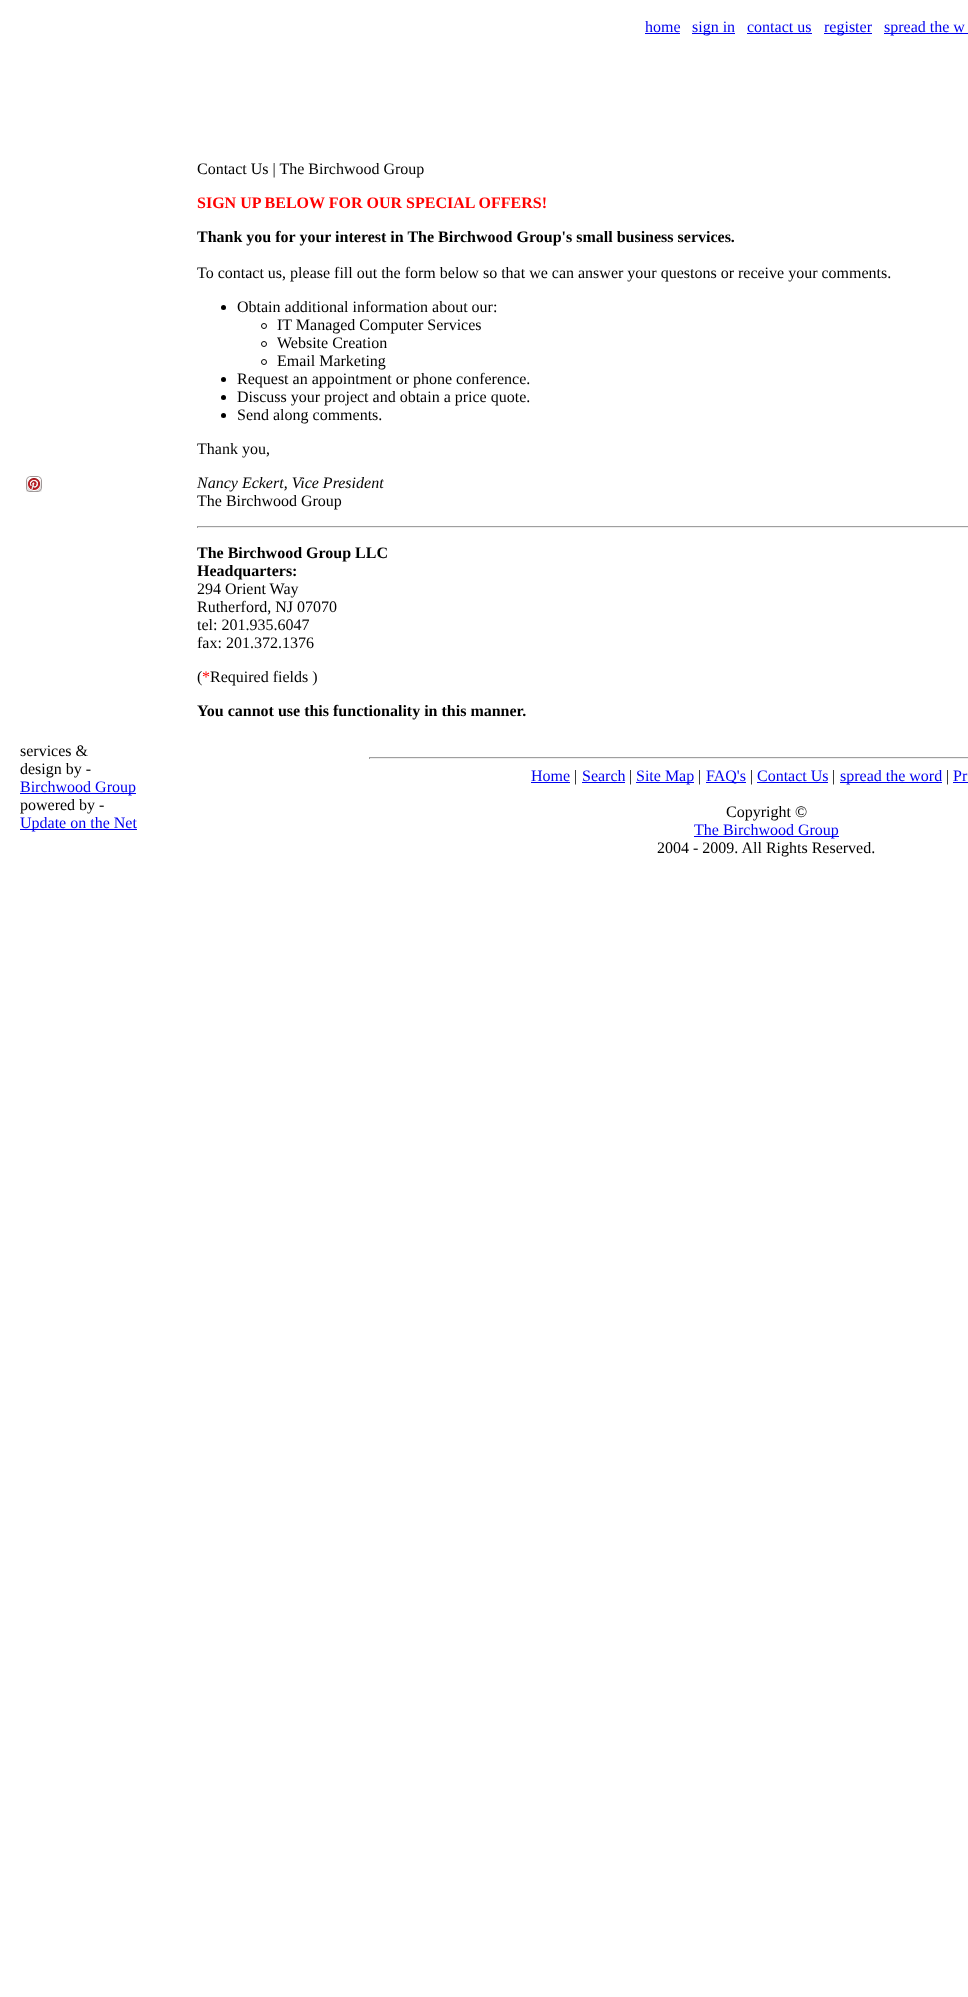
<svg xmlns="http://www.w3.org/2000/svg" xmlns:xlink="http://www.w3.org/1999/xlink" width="968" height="1997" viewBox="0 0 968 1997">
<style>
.cls-1{font:16px Liberation Serif;fill:#0000ee}
.cls-2{font:16px Liberation Serif;fill:#000000}
.cls-3{font:bold 16px Liberation Serif;fill:#ff0000}
.cls-4{font:bold 16px Liberation Serif;fill:#000000}
.cls-5{font:italic 16px Liberation Serif;fill:#000000}
.cls-6{font:16px Liberation Serif;fill:#ff0000}
</style>
<rect width="100%" height="100%" fill="#ffffff"/>
<rect fill="#0000ee" x="645" y="33" width="35" height="1"/>
<rect fill="#0000ee" x="692" y="33" width="43" height="1"/>
<rect fill="#0000ee" x="747" y="33" width="65" height="1"/>
<rect fill="#0000ee" x="824" y="33" width="48" height="1"/>
<rect fill="#0000ee" x="884" y="33" width="84" height="1"/>
<image xlink:href="image0.png" x="26" y="476" width="16" height="16"/>
<rect fill="#0000ee" x="20" y="793" width="116" height="1"/>
<rect fill="#0000ee" x="20" y="829" width="117" height="1"/>
<circle fill="#000000" cx="223.5" cy="307.5" r="2.5"/>
<circle fill="none" stroke="#000000" cx="264" cy="326" r="2.5"/>
<circle fill="none" stroke="#000000" cx="264" cy="344" r="2.5"/>
<circle fill="none" stroke="#000000" cx="264" cy="362" r="2.5"/>
<circle fill="#000000" cx="223.5" cy="379.5" r="2.5"/>
<circle fill="#000000" cx="223.5" cy="397.5" r="2.5"/>
<circle fill="#000000" cx="223.5" cy="415.5" r="2.5"/>
<rect fill="#9f9f9f" x="197" y="526" width="771" height="1"/>
<rect fill="#eeeeee" x="197" y="527" width="771" height="1"/>
<rect fill="#9f9f9f" x="197" y="526" width="1" height="2"/>
<rect fill="#9f9f9f" x="369" y="757" width="599" height="1"/>
<rect fill="#eeeeee" x="369" y="758" width="599" height="1"/>
<rect fill="#9f9f9f" x="369" y="757" width="1" height="2"/>
<rect fill="#0000ee" x="531" y="782" width="39" height="1"/>
<rect fill="#0000ee" x="582" y="782" width="43" height="1"/>
<rect fill="#0000ee" x="636" y="782" width="58" height="1"/>
<rect fill="#0000ee" x="706" y="782" width="40" height="1"/>
<rect fill="#0000ee" x="757" y="782" width="71" height="1"/>
<rect fill="#0000ee" x="840" y="782" width="102" height="1"/>
<rect fill="#0000ee" x="953" y="782" width="15" height="1"/>
<rect fill="#0000ee" x="694" y="836" width="145" height="1"/>
<text class="cls-1" x="645" y="32">home</text>
<text class="cls-1" x="692" y="32">sign in</text>
<text class="cls-1" x="747" y="32">contact us</text>
<text class="cls-1" x="824" y="32">register</text>
<text class="cls-1" x="884" y="32">spread the w</text>
<text class="cls-2"><tspan x="20" y="756">services &amp;</tspan><tspan x="20" y="774">design by -</tspan></text>
<text class="cls-1" x="20" y="792">Birchwood Group</text>
<text class="cls-2" x="20" y="810">powered by -</text>
<text class="cls-1" x="20" y="828">Update on the Net</text>
<text class="cls-2" x="197" y="174">Contact Us | The Birchwood Group</text>
<text class="cls-3" x="197" y="208">SIGN UP BELOW FOR OUR SPECIAL OFFERS!</text>
<text class="cls-4" x="197" y="242">Thank you for your interest in The Birchwood Group's small business services.</text>
<text class="cls-2" x="197" y="278">To contact us, please fill out the form below so that we can answer your questons or receive your comments.</text>
<text class="cls-2" x="237" y="312">Obtain additional information about our:</text>
<text class="cls-2"><tspan x="277" y="330">IT Managed Computer Services</tspan><tspan x="277" y="348">Website Creation</tspan><tspan x="277" y="366">Email Marketing</tspan></text>
<text class="cls-2"><tspan x="237" y="384">Request an appointment or phone conference.</tspan><tspan x="237" y="402">Discuss your project and obtain a price quote.</tspan><tspan x="237" y="420">Send along comments.</tspan></text>
<text class="cls-2" x="197" y="454">Thank you,</text>
<text class="cls-5" x="197" y="488">Nancy Eckert, Vice President</text>
<text class="cls-2" x="197" y="506">The Birchwood Group</text>
<text class="cls-4"><tspan x="197" y="558">The Birchwood Group LLC</tspan><tspan x="197" y="576">Headquarters:</tspan></text>
<text class="cls-2"><tspan x="197" y="594">294 Orient Way</tspan><tspan x="197" y="612">Rutherford, NJ 07070</tspan><tspan x="197" y="630">tel: 201.935.6047</tspan><tspan x="197" y="648">fax: 201.372.1376</tspan></text>
<text class="cls-2" x="197" y="682">(</text>
<text class="cls-6" x="202" y="682">*</text>
<text class="cls-2" x="210" y="682">Required fields )</text>
<text class="cls-4" x="197" y="716">You cannot use this functionality in this manner.</text>
<text class="cls-1" x="531" y="781">Home</text>
<text class="cls-2" x="574" y="781">|</text>
<text class="cls-1" x="582" y="781">Search</text>
<text class="cls-2" x="629" y="781">|</text>
<text class="cls-1" x="636" y="781">Site Map</text>
<text class="cls-2" x="698" y="781">|</text>
<text class="cls-1" x="706" y="781">FAQ's</text>
<text class="cls-2" x="750" y="781">|</text>
<text class="cls-1" x="757" y="781">Contact Us</text>
<text class="cls-2" x="832" y="781">|</text>
<text class="cls-1" x="840" y="781">spread the word</text>
<text class="cls-2" x="946" y="781">|</text>
<text class="cls-1" x="953" y="781">Pr</text>
<text class="cls-2" x="726" y="817">Copyright ©</text>
<text class="cls-1" x="694" y="835">The Birchwood Group</text>
<text class="cls-2" x="657" y="853">2004 - 2009. All Rights Reserved.</text>
</svg>
